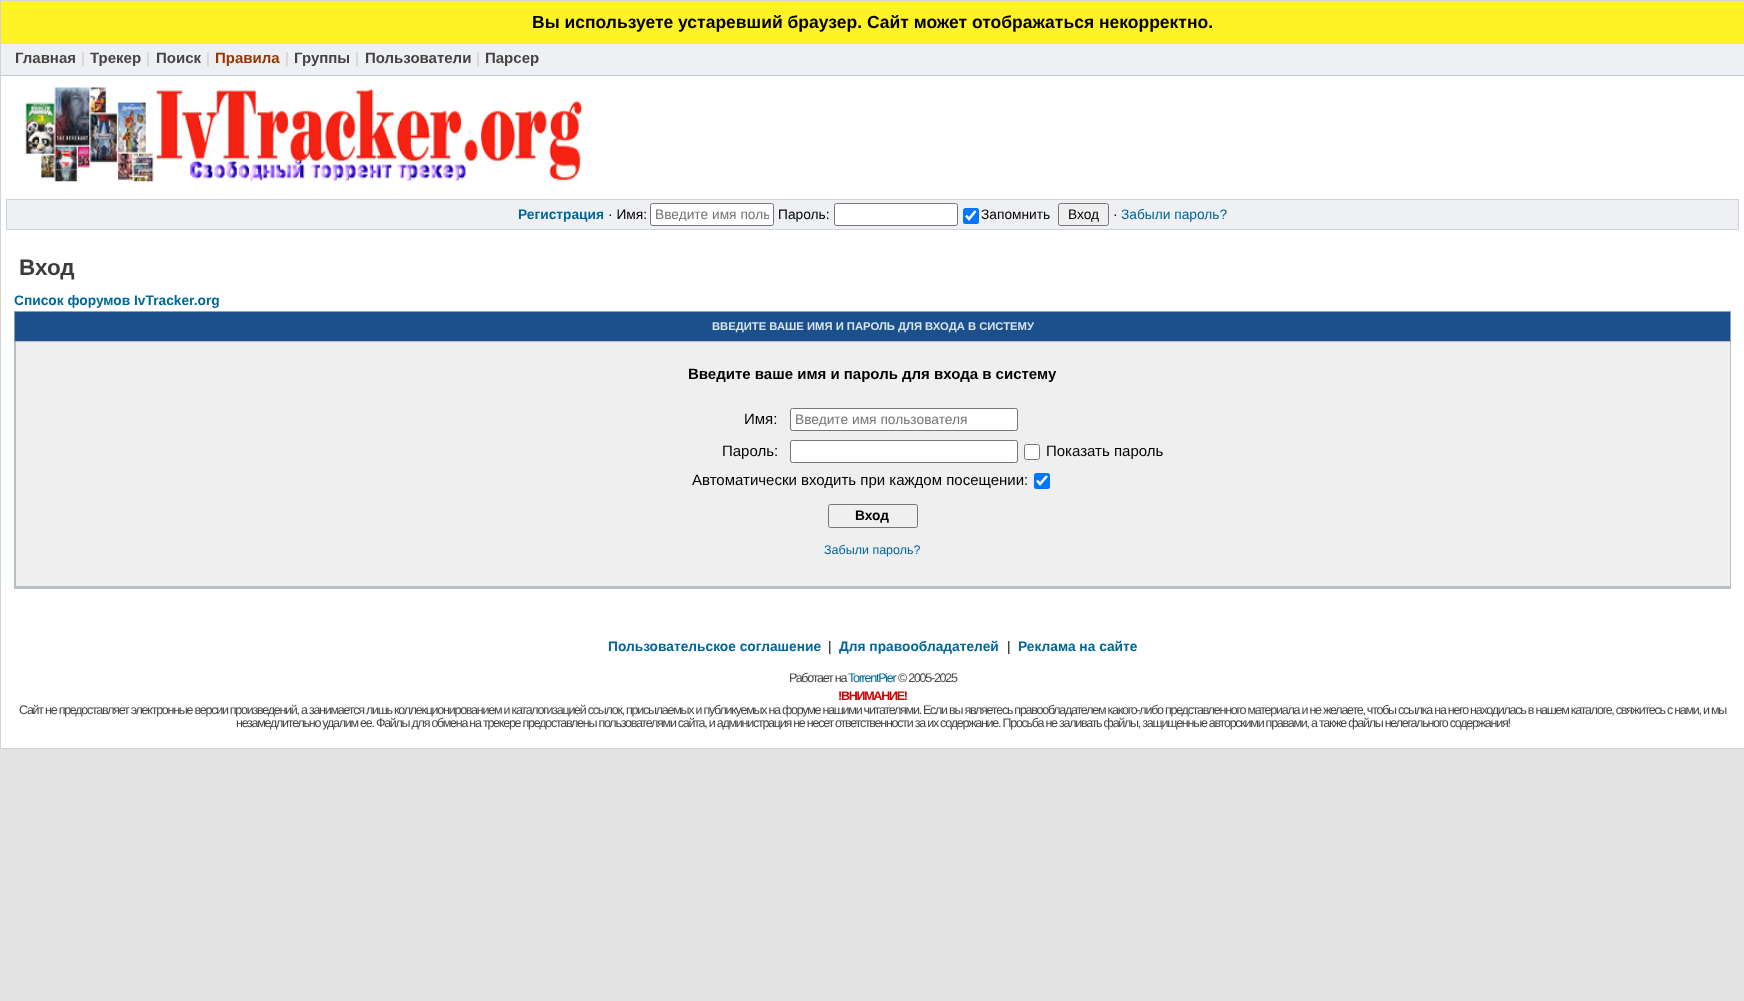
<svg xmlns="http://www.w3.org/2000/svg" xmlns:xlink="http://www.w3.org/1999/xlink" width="1744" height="1001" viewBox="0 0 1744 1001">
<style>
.cls-1{font:bold 17.5px Liberation Sans;fill:#000000}
.cls-2{font:bold 15px Liberation Sans;fill:#444444}
.cls-3{font:15px Liberation Sans;fill:#cdcdcd}
.cls-4{font:bold 15px Liberation Sans;fill:#993300}
.cls-5{font:bold 13.75px Liberation Sans;fill:#006699}
.cls-6{font:13.75px Liberation Sans;fill:#000000}
.cls-7{font:13.75px Liberation Sans;fill:#757575}
.cls-8{font:13.75px Liberation Sans;fill:#006699}
.cls-9{font:bold 22.5px Liberation Sans;fill:#3c3c3c}
.cls-10{font:bold 11.25px Liberation Sans;fill:#d5e4ec}
.cls-11{font:bold 15px Liberation Sans;fill:#000000}
.cls-12{font:15px Liberation Sans;fill:#000000}
.cls-13{font:bold 13.75px Liberation Sans;fill:#000000}
.cls-14{font:12.5px Liberation Sans;fill:#006699}
.cls-15{font:12.5px Liberation Sans;letter-spacing:-1.25px;fill:#444444}
.cls-16{font:12.5px Liberation Sans;letter-spacing:-1.25px;fill:#006699}
.cls-17{font:bold 12.5px Liberation Sans;letter-spacing:-1.25px;fill:#cc0000}
</style>
<defs>
<clipPath id="clip1"><rect x="655" y="206" width="114" height="15"/></clipPath>
<clipPath id="clip2"><rect x="795" y="411" width="218" height="15"/></clipPath>
</defs>
<rect width="100%" height="100%" fill="#e3e3e3"/>
<rect fill="#ffffff" x="1" y="76" width="1743" height="672"/>
<rect fill="none" stroke="#cfd4d8" x="0.5" y="0.5" width="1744" height="748"/>
<rect fill="#fff227" x="1" y="1" width="1743" height="43"/>
<rect fill="#eff0f3" x="1" y="44" width="1743" height="31"/>
<rect fill="#c3cbd1" x="1" y="75" width="1743" height="1"/>
<image xlink:href="image0.png" x="25" y="87" width="558" height="95"/>
<rect fill="#eff0f3" stroke="#cfd4d8" x="6.5" y="199.5" width="1732" height="30"/>
<rect fill="#ffffff" stroke="#767676" x="650.5" y="203.5" width="123" height="22" rx="2"/>
<rect fill="#ffffff" stroke="#767676" x="834.5" y="203.5" width="123" height="22" rx="2"/>
<rect fill="#0075ff" x="963" y="208" width="16" height="16" rx="2.5"/>
<path fill="none" stroke="#ffffff" stroke-width="2.6" d="M966 215.5L969 219L975.5 211"/>
<rect fill="#efefef" stroke="#767676" x="1058.5" y="203.5" width="50" height="22" rx="2"/>
<rect fill="#b7c0c5" x="14" y="342" width="1717" height="247"/>
<rect fill="#1c508c" x="15" y="312" width="1715" height="29"/>
<rect fill="#92a3a4" x="14" y="311" width="1717" height="1"/>
<rect fill="#92a3a4" x="1730" y="311" width="1" height="32"/>
<rect fill="#b7c0c5" x="14" y="341" width="1717" height="1"/>
<rect fill="#92a3a4" x="14" y="311" width="1" height="32"/>
<rect fill="#efefef" x="16" y="342" width="1714" height="244"/>
<rect fill="#ffffff" stroke="#767676" x="790.5" y="408.5" width="227" height="22" rx="2"/>
<rect fill="#ffffff" stroke="#767676" x="790.5" y="440.5" width="227" height="22" rx="2"/>
<rect fill="#ffffff" stroke="#767676" x="1024.5" y="444.5" width="15" height="15" rx="2"/>
<rect fill="#0075ff" x="1034" y="473" width="16" height="16" rx="2.5"/>
<path fill="none" stroke="#ffffff" stroke-width="2.6" d="M1037 480.5L1040 484L1047 476"/>
<rect fill="none" stroke="#767676" x="828.5" y="504.5" width="89" height="23" rx="2"/>
<text class="cls-1" x="532" y="28">Вы используете устаревший браузер. Сайт может отображаться некорректно.</text>
<text class="cls-2" x="15" y="63">Главная</text>
<text class="cls-3" x="81" y="63">|</text>
<text class="cls-2" x="90" y="63">Трекер</text>
<text class="cls-3" x="146" y="63">|</text>
<text class="cls-2" x="156" y="63">Поиск</text>
<text class="cls-3" x="206" y="63">|</text>
<text class="cls-4" x="215" y="63">Правила</text>
<text class="cls-3" x="285" y="63">|</text>
<text class="cls-2" x="294" y="63">Группы</text>
<text class="cls-3" x="355" y="63">|</text>
<text class="cls-2" x="365" y="63">Пользователи</text>
<text class="cls-3" x="476" y="63">|</text>
<text class="cls-2" x="485" y="63">Парсер</text>
<text class="cls-5" x="518" y="219">Регистрация</text>
<text class="cls-6" x="608" y="219">· Имя:</text>
<g clip-path="url(#clip1)">
<text class="cls-7" x="655" y="219">Введите имя поль</text>
</g>
<text class="cls-6" x="778" y="219">Пароль:</text>
<text class="cls-6" x="981" y="219">Запомнить</text>
<text class="cls-6" x="1068" y="219">Вход</text>
<text class="cls-6" x="1113" y="219">·</text>
<text class="cls-8" x="1121" y="219">Забыли пароль?</text>
<text class="cls-9" x="19" y="275">Вход</text>
<text class="cls-5" x="14" y="305">Список форумов IvTracker.org</text>
<text class="cls-10" x="712" y="330">ВВЕДИТЕ ВАШЕ ИМЯ И ПАРОЛЬ ДЛЯ ВХОДА В СИСТЕМУ</text>
<text class="cls-11" x="688" y="379">Введите ваше имя и пароль для входа в систему</text>
<text class="cls-12" x="744" y="424">Имя:</text>
<g clip-path="url(#clip2)">
<text class="cls-7" x="795" y="424">Введите имя пользователя</text>
</g>
<text class="cls-12" x="722" y="456">Пароль:</text>
<text class="cls-12" x="1046" y="456">Показать пароль</text>
<text class="cls-12" x="692" y="485">Автоматически входить при каждом посещении:</text>
<text class="cls-13" x="855" y="520">Вход</text>
<text class="cls-14" x="824" y="554">Забыли пароль?</text>
<text class="cls-5" x="608" y="651">Пользовательское соглашение</text>
<text class="cls-6" x="828" y="651">|</text>
<text class="cls-5" x="839" y="651">Для правообладателей</text>
<text class="cls-6" x="1007" y="651">|</text>
<text class="cls-5" x="1018" y="651">Реклама на сайте</text>
<text class="cls-15" x="789" y="682">Работает на</text>
<text class="cls-16" x="848" y="682">TorrentPier</text>
<text class="cls-15" x="898" y="682">© 2005-2025</text>
<text class="cls-17" x="838" y="700">!ВНИМАНИЕ!</text>
<text class="cls-15" x="19" y="714">Сайт не предоставляет электронные версии произведений, а занимается лишь коллекционированием и каталогизацией ссылок, присылаемых и публикуемых на форуме нашими читателями. Если вы являетесь правообладателем какого-либо представленного материала и не желаете, чтобы ссылка на него находилась в нашем каталоге, свяжитесь с нами, и мы</text>
<text class="cls-15" x="236" y="727">незамедлительно удалим ее. Файлы для обмена на трекере предоставлены пользователями сайта, и администрация не несет ответственности за их содержание. Просьба не заливать файлы, защищенные авторскими правами, а также файлы нелегального содержания!</text>
</svg>
